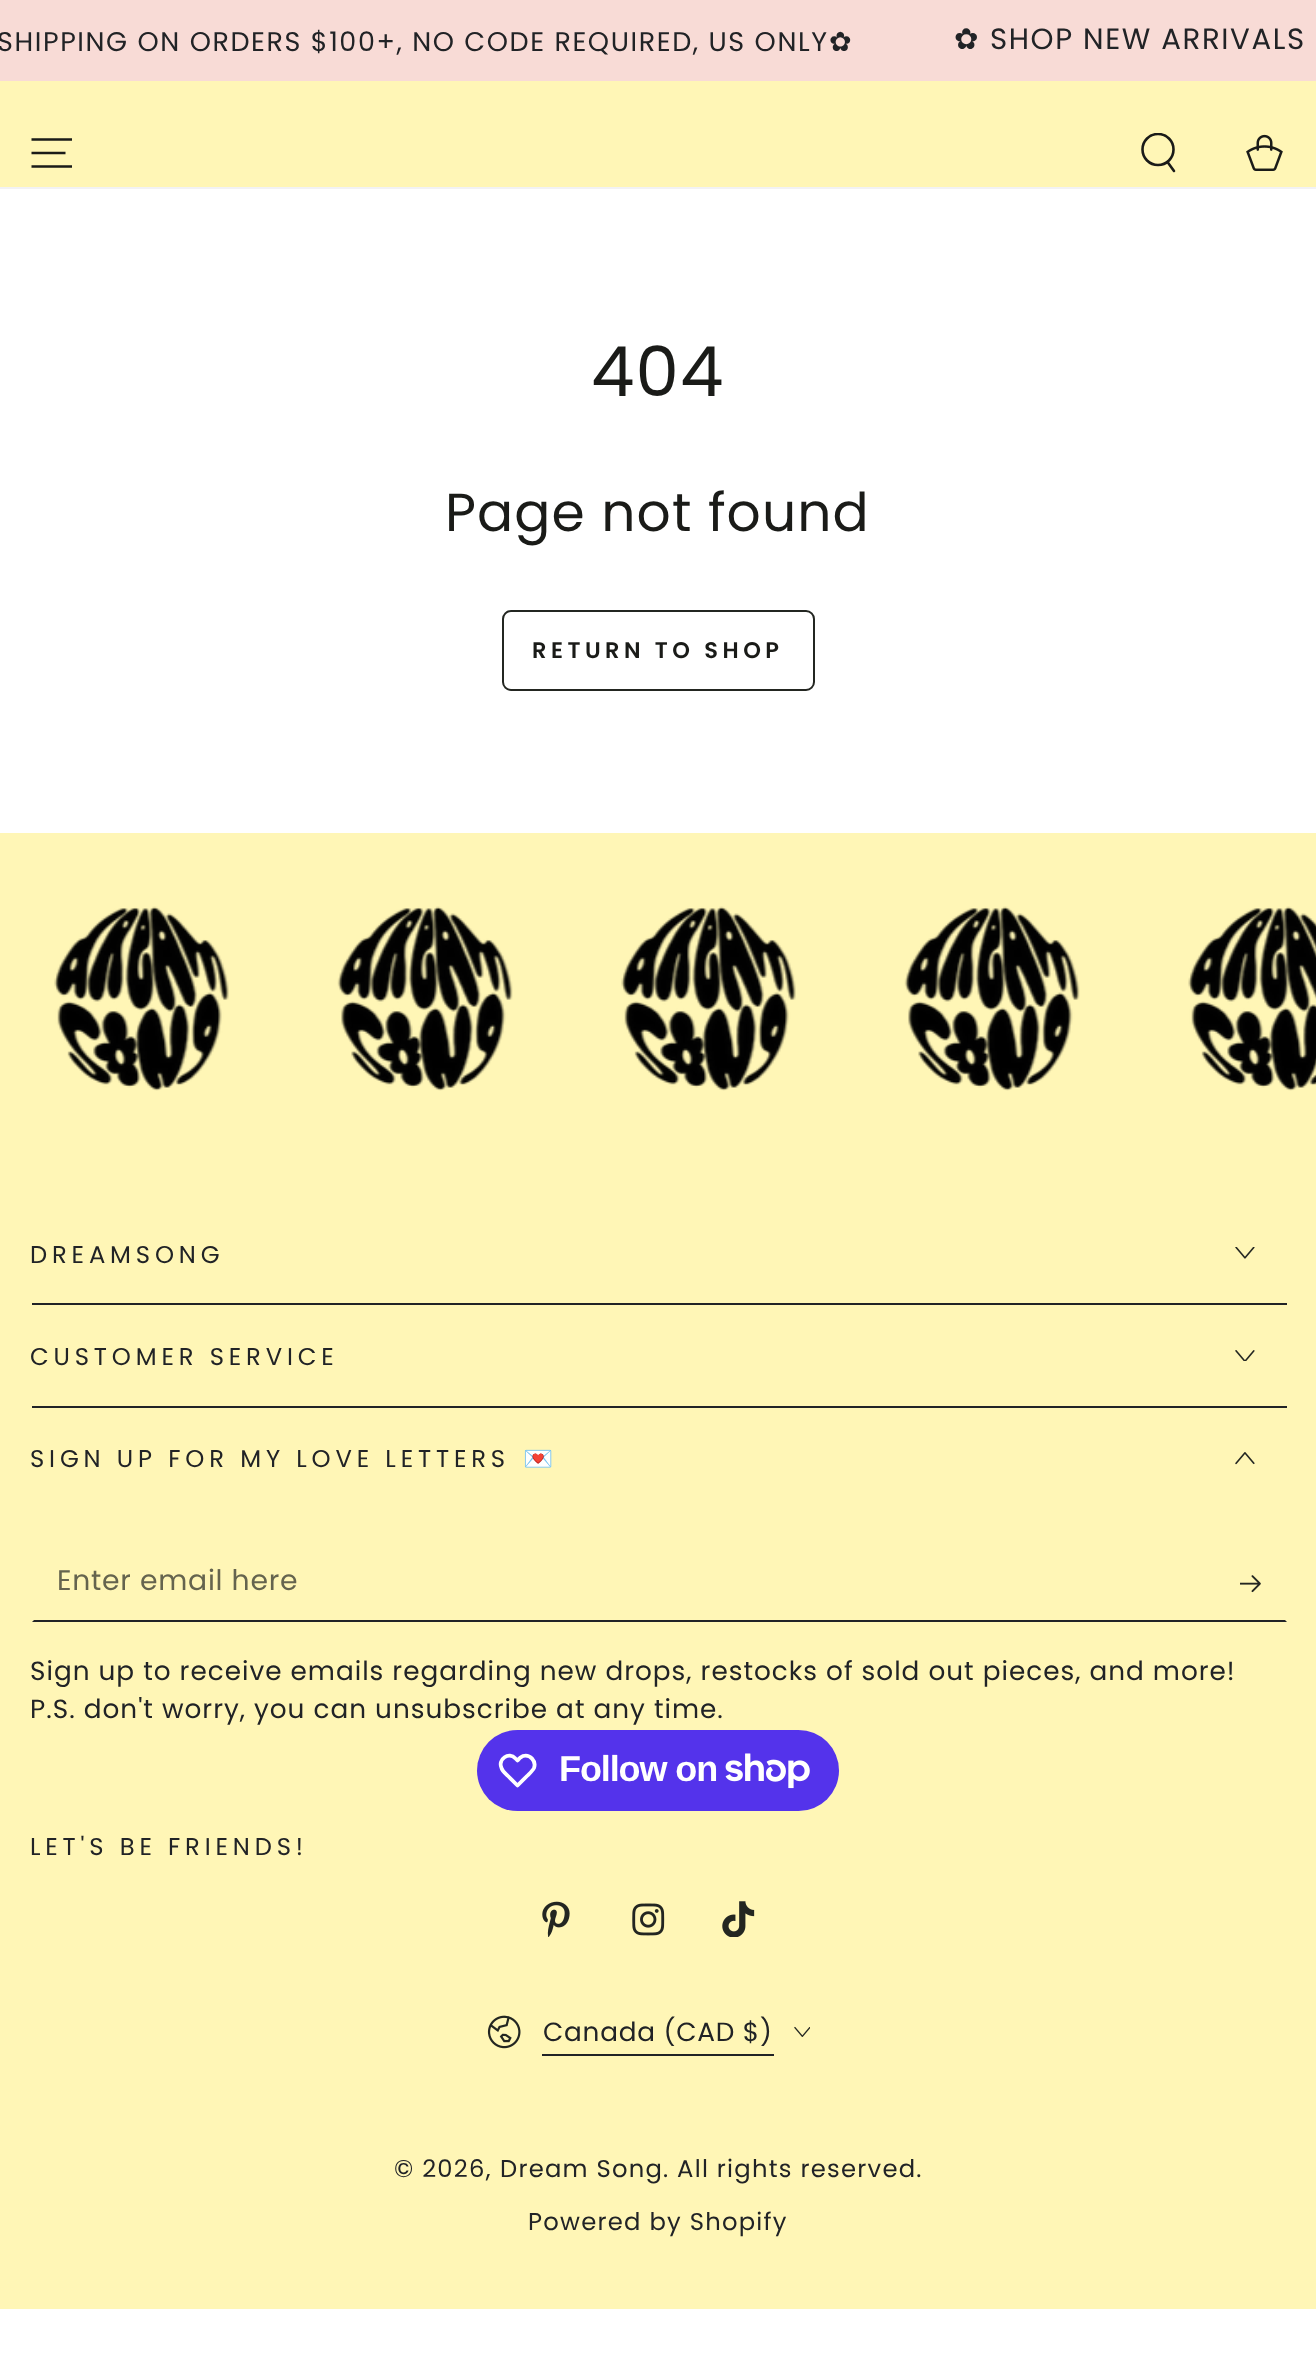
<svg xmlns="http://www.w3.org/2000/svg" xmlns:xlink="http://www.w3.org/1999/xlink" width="1316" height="2363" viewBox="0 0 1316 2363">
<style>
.cls-1{font:27px Poppins;letter-spacing:1.58px;fill:#212326}
.cls-2{font:27px DejaVu Sans;letter-spacing:1.58px;fill:#212326}
.cls-3{font:29.25px DejaVu Sans;letter-spacing:1.58px;fill:#212326}
.cls-4{font:29.25px Poppins;letter-spacing:1.58px;fill:#212326}
.cls-5{font:69px Poppins;letter-spacing:1.1px;fill:#1a1b18}
.cls-6{font:53.5px Poppins;letter-spacing:1.1px;fill:#1a1b18}
.cls-7{font:600 22.5px Poppins;letter-spacing:4.5px;fill:#1a1b18}
.cls-8{font:24.25px Poppins;letter-spacing:4.85px;fill:#212326}
.cls-9{font:24.25px Noto Color Emoji;letter-spacing:4.85px;fill:#212326}
.cls-10{font:28.25px Poppins;letter-spacing:0.75px;fill:#65644e}
.cls-11{font:26.3px Poppins;letter-spacing:1px;fill:#212326}
.cls-12{font:bold 36px Liberation Sans;letter-spacing:-1.1px;fill:#ffffff}
.cls-13{font:26.3px Poppins;letter-spacing:0.75px;fill:#212326}
.cls-14{font:24.25px Poppins;letter-spacing:1.25px;fill:#212326}
</style>
<defs>
<clipPath id="clip1"><rect x="1139" y="133" width="40" height="40"/></clipPath>
</defs>
<rect width="100%" height="100%" fill="#ffffff"/>
<rect fill="#f8dbd6" x="0" y="0" width="1316" height="81"/>
<rect fill="#f2f2f4" x="0" y="187" width="1316" height="2"/>
<rect fill="#fff6b6" x="0" y="81" width="1316" height="106"/>
<path fill="none" stroke="#1a1b18" stroke-width="2.3" d="M31.5 166.5H72M31.5 153H65.5M31.5 139.5H72"/>
<g clip-path="url(#clip1)">
<circle fill="none" stroke="#1a1b18" stroke-width="2.6" cx="1158" cy="149.5" r="15.5"/>
</g>
<path fill="none" stroke="#1a1b18" stroke-width="2.6" stroke-linecap="round" d="M1167.5 162L1174 171"/>
<image xlink:href="image0.png" x="1246" y="134" width="37" height="37"/>
<rect fill="none" stroke="#232621" stroke-width="2" x="503" y="611" width="311" height="79" rx="8"/>
<rect fill="#fff6b6" x="0" y="833" width="1316" height="1476"/>
<image xlink:href="image1.png" x="54" y="906" width="175" height="185"/>
<image xlink:href="image2.png" x="337" y="906" width="176" height="185"/>
<image xlink:href="image1.png" x="621" y="906" width="175" height="185"/>
<image xlink:href="image2.png" x="904" y="906" width="176" height="185"/>
<image xlink:href="image3.png" x="1188" y="906" width="128" height="185"/>
<rect fill="#212326" x="32" y="1303" width="1255" height="2"/>
<image xlink:href="image4.png" x="1235" y="1247" width="20" height="12"/>
<rect fill="#212326" x="32" y="1406" width="1255" height="2"/>
<image xlink:href="image5.png" x="1235" y="1350" width="20" height="11"/>
<image xlink:href="image6.png" x="1235" y="1452" width="20" height="13"/>
<path fill="#212326" d="M1287 1622H32L34 1620H1285Z"/>
<image xlink:href="image7.png" x="1240" y="1575" width="21" height="18"/>
<rect fill="#5433eb" x="477" y="1730" width="362" height="81" rx="40.5"/>
<path fill="none" stroke="#ffffff" stroke-width="3.8" stroke-linejoin="round" d="M515.5 1758.5L517.5 1760.5C519 1758.5 520.5 1757 523 1756C530 1754 536.5 1761 534 1768C532.5 1771 529.5 1773.5 527 1776L517.5 1785.5L508 1776C505.5 1773.5 502.5 1771.5 501.5 1768C497.5 1759 509 1751.5 515.5 1758.5Z"/>
<image xlink:href="image8.png" x="725" y="1753" width="85" height="36"/>
<image xlink:href="image9.png" x="542" y="1901" width="28" height="36"/>
<image xlink:href="image10.png" x="632" y="1903" width="33" height="33"/>
<image xlink:href="image11.png" x="722" y="1901" width="33" height="36"/>
<image xlink:href="image12.png" x="487" y="2015" width="34" height="34"/>
<rect fill="#212326" x="542" y="2054" width="232" height="2"/>
<image xlink:href="image13.png" x="794" y="2026" width="16" height="11"/>
<text class="cls-1" x="-3" y="51">SHIPPING ON ORDERS $100+, NO CODE REQUIRED, US ONLY</text>
<text class="cls-2" x="829" y="51">✿</text>
<text class="cls-3" x="954" y="49">✿</text>
<text class="cls-4" x="990" y="49">SHOP NEW ARRIVALS</text>
<text class="cls-5" x="591" y="396">404</text>
<text class="cls-6" x="445" y="531">Page not found</text>
<text class="cls-7" x="532" y="658">RETURN TO SHOP</text>
<text class="cls-8" x="30" y="1263">DREAMSONG</text>
<text class="cls-8" x="30" y="1365">CUSTOMER SERVICE</text>
<text class="cls-8" x="30" y="1467">SIGN UP FOR MY LOVE LETTERS</text>
<text class="cls-9" x="523" y="1467">💌</text>
<text class="cls-10" x="57" y="1590">Enter email here</text>
<text class="cls-11"><tspan x="30" y="1680">Sign up to receive emails regarding new drops, restocks of sold out pieces, and more!</tspan><tspan x="30" y="1718">P.S. don't worry, you can unsubscribe at any time.</tspan></text>
<text class="cls-12" x="559" y="1781">Follow on</text>
<text class="cls-8" x="30" y="1855">LET'S BE FRIENDS!</text>
<text class="cls-13" x="543" y="2041">Canada (CAD $)</text>
<text class="cls-14" x="394" y="2177">© 2026,</text>
<text class="cls-14" x="500" y="2177">Dream Song</text>
<text class="cls-14" x="663" y="2177">. All rights reserved.</text>
<text class="cls-14" x="528" y="2230">Powered by Shopify</text>
</svg>
